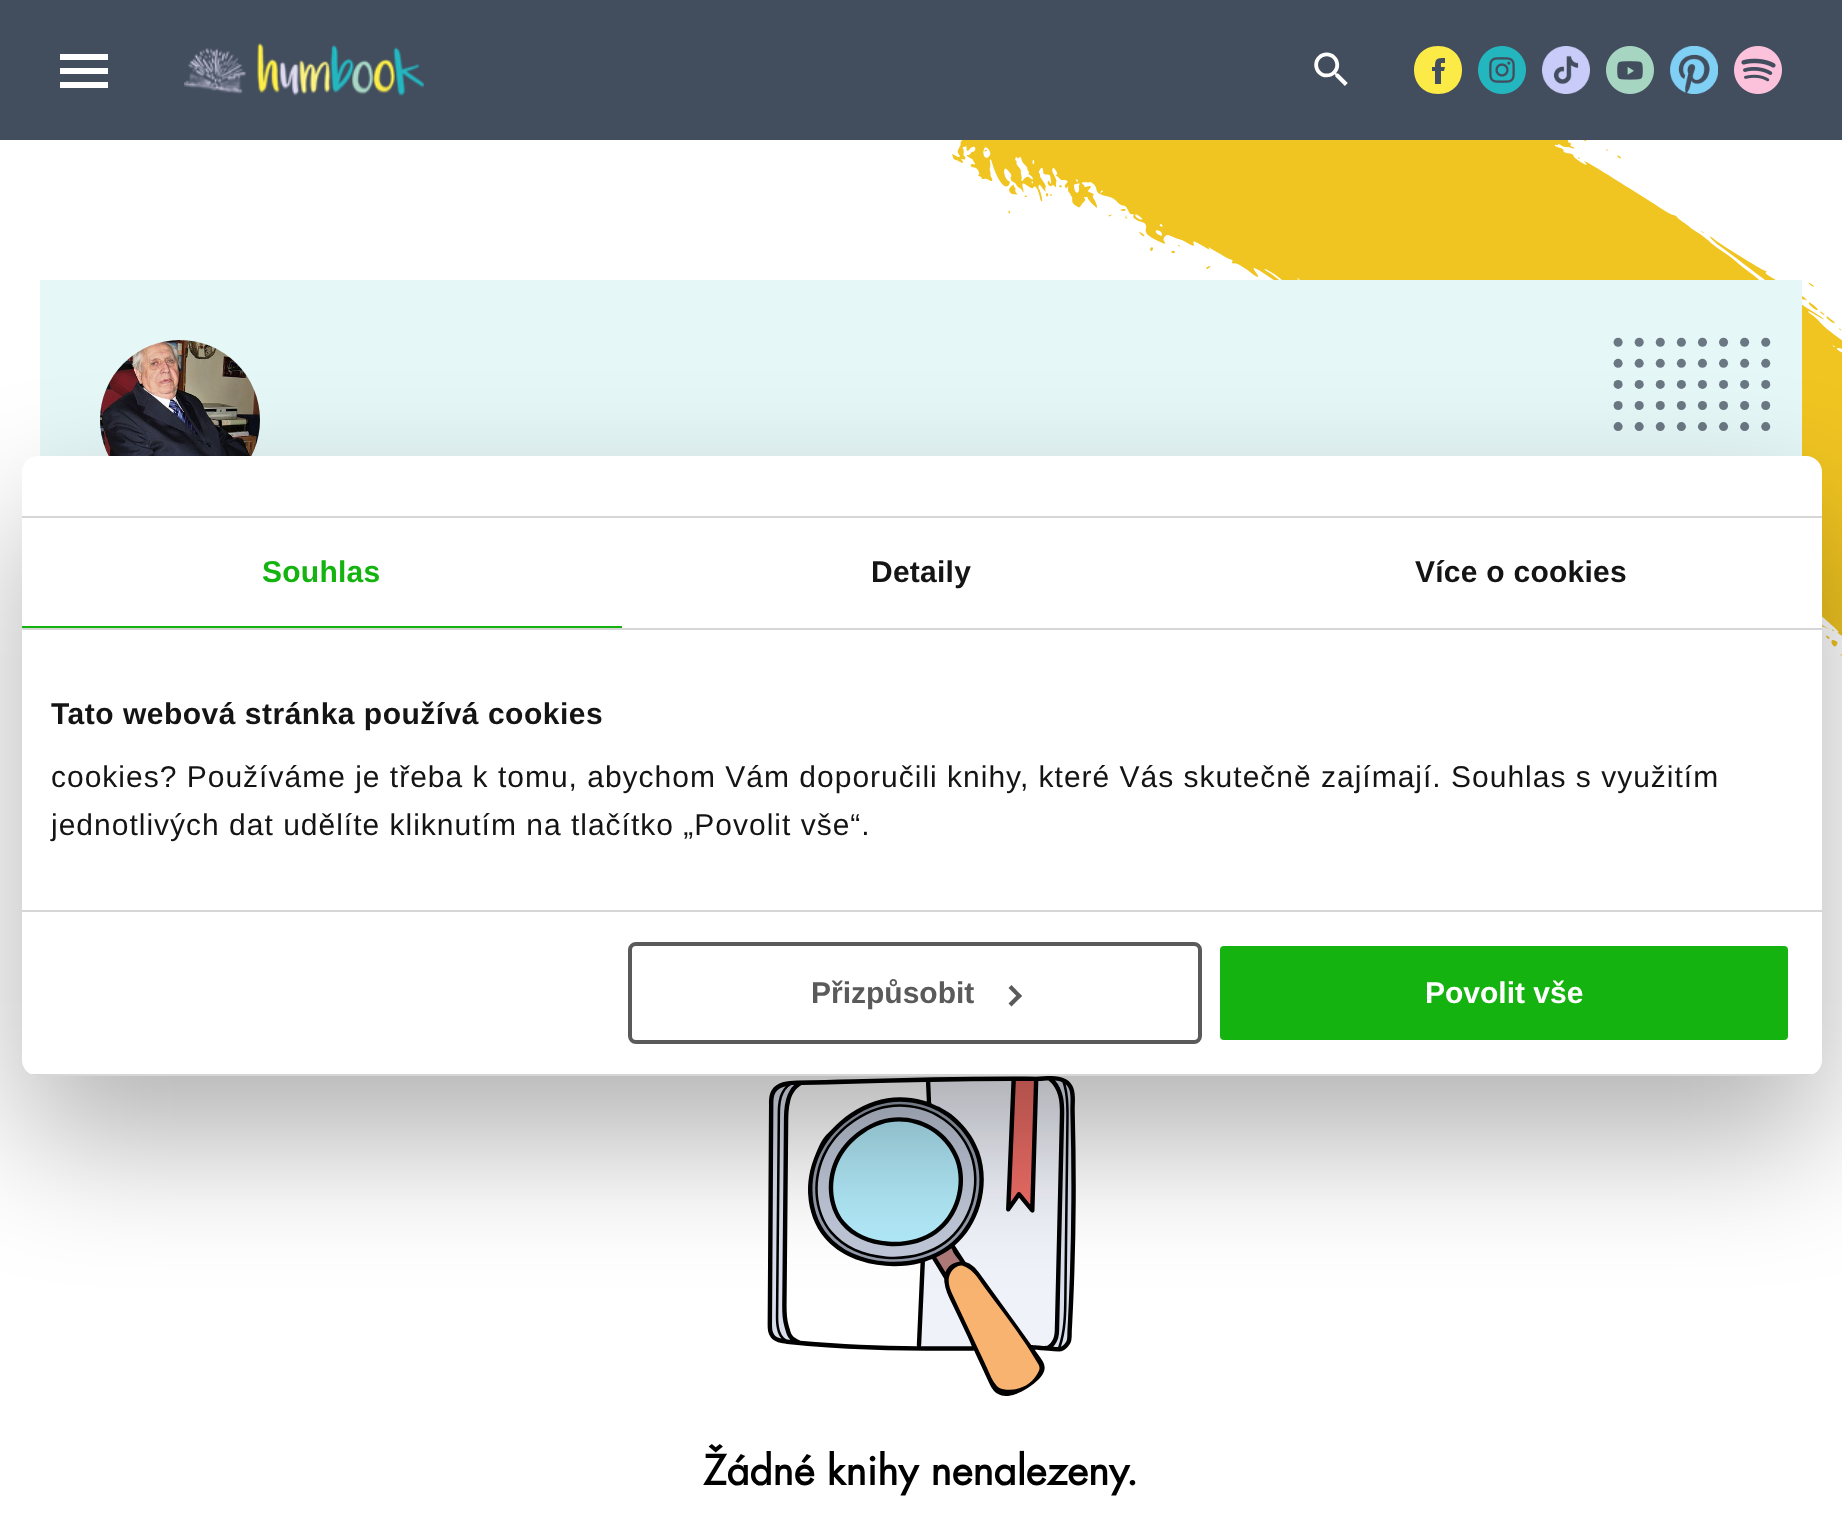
<svg xmlns="http://www.w3.org/2000/svg" xmlns:xlink="http://www.w3.org/1999/xlink" width="1842" height="1532" viewBox="0 0 1842 1532">
<style>
.cls-1{font:bold 30px Liberation Sans;letter-spacing:0.25px;fill:#14b310}
.cls-2{font:bold 30px Liberation Sans;letter-spacing:0.25px;fill:#141414}
.cls-3{font:bold 30px Liberation Sans;letter-spacing:0.5px;fill:#141414}
.cls-4{font:30px Liberation Sans;letter-spacing:1px;fill:#141414}
.cls-5{font:bold 30px Liberation Sans;fill:#5b5a5a}
.cls-6{font:bold 30px Liberation Sans;fill:#ffffff}
.cls-7{font:bold 40px Futura;fill:#000000}
</style>
<defs>
<clipPath id="clip1"><rect x="22" y="456" width="1800" height="620" rx="16"/></clipPath>
</defs>
<rect width="100%" height="100%" fill="#ffffff"/>
<rect fill="#424d5e" x="0" y="0" width="1842" height="140"/>
<image xlink:href="image0.png" x="184" y="42" width="240" height="54"/>
<image xlink:href="image1.png" x="1314" y="52" width="34" height="34"/>
<path fill="#fceb47" fill-rule="evenodd" d="M1438 46C1406 46 1406 94 1438 94C1470 94 1470 46 1438 46ZM1441 71V84H1435V71H1432V67H1435C1435 58 1437 58 1445 58V63C1440 63 1441 62 1441 67H1445L1444 71Z"/>
<image xlink:href="image2.png" x="1478" y="46" width="48" height="48"/>
<image xlink:href="image3.png" x="1542" y="46" width="48" height="48"/>
<image xlink:href="image4.png" x="1606" y="46" width="48" height="48"/>
<image xlink:href="image5.png" x="1670" y="46" width="48" height="48"/>
<image xlink:href="image6.png" x="1734" y="46" width="48" height="48"/>
<rect fill="#ffffff" x="60" y="68" width="48" height="6"/>
<rect fill="#ffffff" x="60" y="54" width="48" height="6"/>
<rect fill="#ffffff" x="60" y="82" width="48" height="6"/>
<image xlink:href="image7.png" x="952" y="140" width="890" height="516"/>
<rect fill="#e6f7f7" x="40" y="280" width="1762" height="176"/>
<image xlink:href="image8.png" x="1613" y="337" width="158" height="94"/>
<image xlink:href="image9.png" x="100" y="340" width="160" height="116"/>
<image xlink:href="image10.png" x="767" y="1076" width="309" height="320"/>
<rect fill="#000000" fill-opacity="0.3" filter="blur(68px)" x="22" y="520" width="1800" height="620" rx="16"/>
<rect fill="#ffffff" x="22" y="456" width="1800" height="620" rx="16"/>
<rect fill="#d6d6d6" x="22" y="516" width="1800" height="2"/>
<rect fill="#d6d6d6" x="22" y="628" width="1800" height="2"/>
<rect fill="#14b310" x="22" y="626" width="600" height="2"/>
<rect fill="#d6d6d6" x="22" y="910" width="1800" height="2"/>
<g clip-path="url(#clip1)">
<rect fill="#d6d6d6" x="22" y="1074" width="1800" height="2"/>
</g>
<rect fill="none" stroke="#5b5a5a" stroke-width="4" x="630" y="944" width="570" height="98" rx="6"/>
<path fill="#5b5a5a" d="M1011.5 985L1022 996L1019 998.5L1008.5 988Z"/>
<path fill="#5b5a5a" d="M1019 993L1022 996L1011.5 1006.5L1008.5 1003.5Z"/>
<rect fill="#14b310" stroke="#ffffff" stroke-width="4" x="1218" y="944" width="572" height="98" rx="6"/>
<text class="cls-1" x="262" y="582">Souhlas</text>
<text class="cls-2" x="871" y="582">Detaily</text>
<text class="cls-2" x="1415" y="582">Více o cookies</text>
<text class="cls-3" x="51" y="724">Tato webová stránka používá cookies</text>
<text class="cls-4"><tspan x="51" y="787">cookies? Používáme je třeba k tomu, abychom Vám doporučili knihy, které Vás skutečně zajímají. Souhlas s využitím</tspan><tspan x="51" y="835">jednotlivých dat udělíte kliknutím na tlačítko „Povolit vše“.</tspan></text>
<text class="cls-5" x="811" y="1003">Přizpůsobit</text>
<text class="cls-6" x="1425" y="1003">Povolit vše</text>
<text class="cls-7" x="703" y="1485">Žádné knihy nenalezeny.</text>
</svg>
